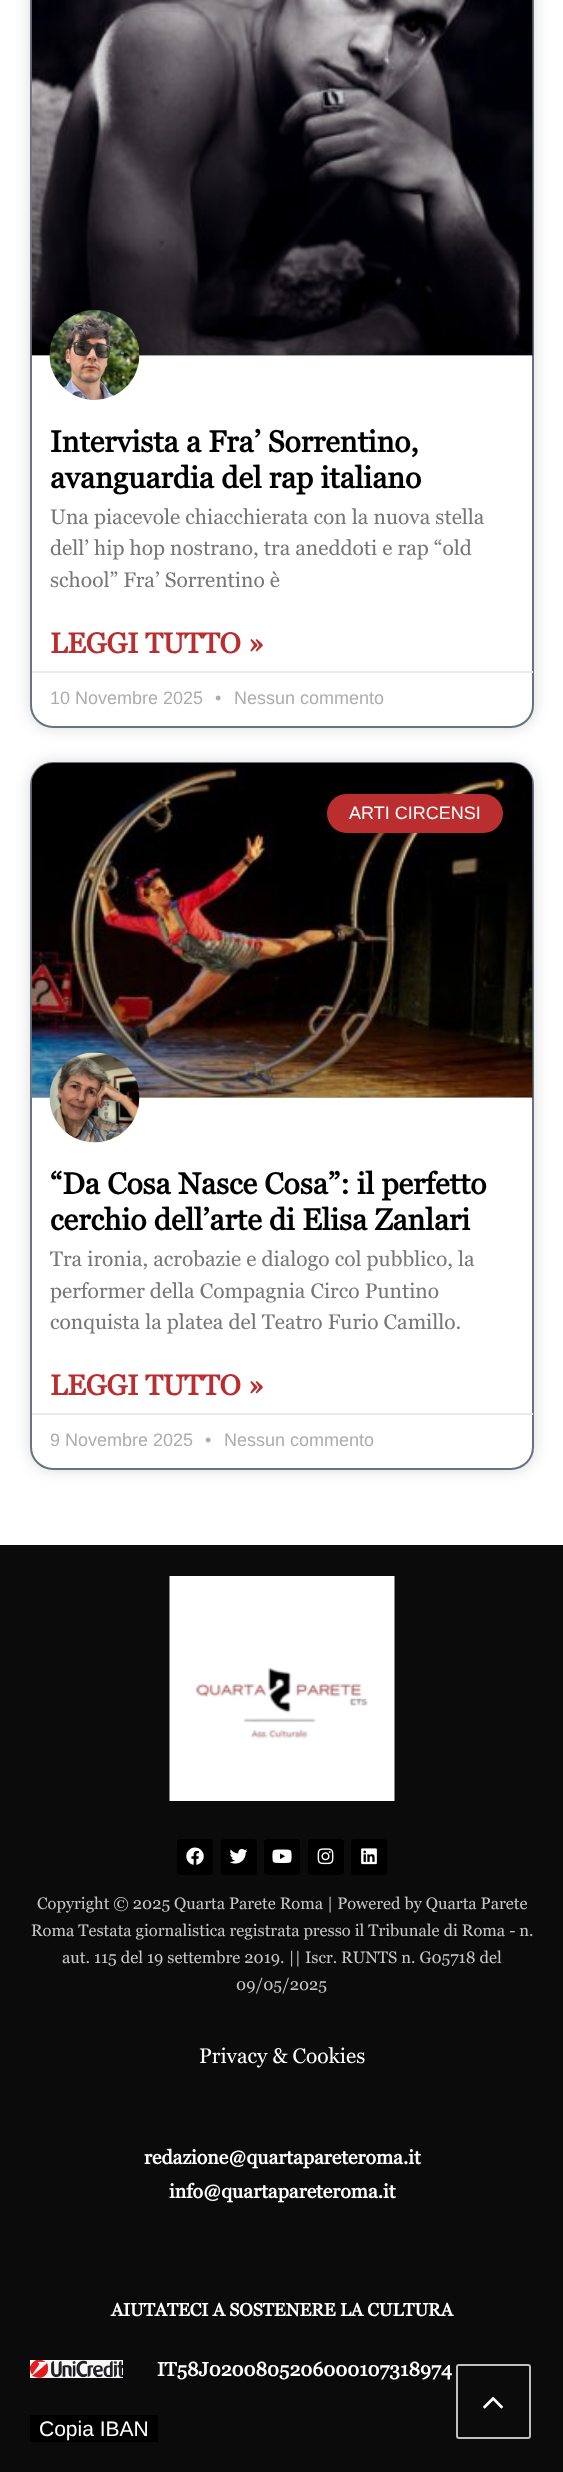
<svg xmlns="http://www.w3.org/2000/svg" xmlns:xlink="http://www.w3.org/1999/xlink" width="563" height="2472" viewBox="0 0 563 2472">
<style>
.cls-1{font:bold 30px Georgia;fill:#000000}
.cls-2{font:21px Georgia;fill:#777777}
.cls-3{font:bold 28.5px Georgia;fill:#bb2e2f}
.cls-4{font:18px Liberation Sans;fill:#adadad}
.cls-5{font:18px Liberation Sans;fill:#ffffff}
.cls-6{font:16.5px Georgia;fill:#c7c7c7}
.cls-7{font:21px Georgia;fill:#ffffff}
.cls-8{font:bold 19.5px Georgia;fill:#ffffff}
.cls-9{font:bold 18px Georgia;fill:#ffffff}
.cls-10{font:21px Liberation Sans;fill:#ffffff}
</style>
<defs>
<linearGradient id="g1" gradientUnits="userSpaceOnUse" x1="282" y1="356" x2="282" y2="-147"><stop offset="0" stop-color="#000000" stop-opacity="0.35"/><stop offset="0.75" stop-color="#000000" stop-opacity="0"/></linearGradient>
<linearGradient id="g2" gradientUnits="userSpaceOnUse" x1="282" y1="1098" x2="282" y2="764"><stop offset="0" stop-color="#000000" stop-opacity="0.35"/><stop offset="0.75" stop-color="#000000" stop-opacity="0"/></linearGradient>
</defs>
<rect width="100%" height="100%" fill="#ffffff"/>
<rect fill="#000000" fill-opacity="0.15" filter="blur(7.5px)" x="30" y="-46" width="504" height="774" rx="23"/>
<rect fill="#ffffff" stroke="#69727d" stroke-width="2" x="31" y="-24" width="502" height="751" rx="22"/>
<image xlink:href="image0.png" x="31" y="0" width="502" height="355"/>
<rect fill="url(#g1)" x="32" y="2" width="501" height="354"/>
<image xlink:href="image1.png" x="49" y="310" width="91" height="90"/>
<rect fill="#eaeaea" x="32" y="671" width="501" height="2"/>
<rect fill="#000000" fill-opacity="0.15" filter="blur(7.5px)" x="30" y="762" width="504" height="708" rx="23"/>
<rect fill="#ffffff" stroke="#69727d" stroke-width="2" x="31" y="763" width="502" height="706" rx="22"/>
<image xlink:href="image2.png" x="31" y="763" width="502" height="335"/>
<rect fill="url(#g2)" x="32" y="863" width="501" height="235"/>
<rect fill="#bb2e2f" x="327" y="794" width="176" height="39" rx="19.5"/>
<image xlink:href="image3.png" x="49" y="1052" width="91" height="91"/>
<rect fill="#eaeaea" x="32" y="1413" width="501" height="2"/>
<rect fill="#0b0b0b" x="0" y="1545" width="563" height="927"/>
<image xlink:href="image4.png" x="169" y="1576" width="226" height="225"/>
<rect fill="#000000" x="177" y="1839" width="36" height="36" rx="4"/>
<image xlink:href="image5.png" x="186" y="1847" width="18" height="18"/>
<rect fill="#000000" x="221" y="1839" width="36" height="36" rx="4"/>
<image xlink:href="image6.png" x="229" y="1849" width="19" height="15"/>
<rect fill="#000000" x="264" y="1839" width="36" height="36" rx="4"/>
<image xlink:href="image7.png" x="272" y="1849" width="20" height="14"/>
<rect fill="#000000" x="308" y="1839" width="36" height="36" rx="4"/>
<image xlink:href="image8.png" x="317" y="1848" width="17" height="17"/>
<rect fill="#000000" x="351" y="1839" width="36" height="36" rx="4"/>
<image xlink:href="image9.png" x="361" y="1848" width="16" height="17"/>
<image xlink:href="image10.png" x="30" y="2360" width="93" height="18"/>
<rect fill="#000000" x="30" y="2415" width="128" height="27"/>
<rect fill="none" stroke="#c0c0c0" stroke-width="2" x="457" y="2365" width="73" height="73" rx="2"/>
<image xlink:href="image11.png" x="483" y="2396" width="21" height="13"/>
<text class="cls-1"><tspan x="50" y="452">Intervista a Fra’ Sorrentino,</tspan><tspan x="50" y="488">avanguardia del rap italiano</tspan></text>
<text class="cls-2"><tspan x="50" y="524">Una piacevole chiacchierata con la nuova stella</tspan><tspan x="50" y="555">dell’ hip hop nostrano, tra aneddoti e rap “old</tspan><tspan x="50" y="587">school” Fra’ Sorrentino è</tspan></text>
<text class="cls-3" x="50" y="653">LEGGI TUTTO »</text>
<text class="cls-4" x="50" y="704">10 Novembre 2025</text>
<text class="cls-4" x="215" y="704">•</text>
<text class="cls-4" x="234" y="704">Nessun commento</text>
<text class="cls-5" x="349" y="819">ARTI CIRCENSI</text>
<text class="cls-1"><tspan x="50" y="1194">“Da Cosa Nasce Cosa”: il perfetto</tspan><tspan x="50" y="1230">cerchio dell’arte di Elisa Zanlari</tspan></text>
<text class="cls-2"><tspan x="50" y="1266">Tra ironia, acrobazie e dialogo col pubblico, la</tspan><tspan x="50" y="1298">performer della Compagnia Circo Puntino</tspan><tspan x="50" y="1329">conquista la platea del Teatro Furio Camillo.</tspan></text>
<text class="cls-3" x="50" y="1395">LEGGI TUTTO »</text>
<text class="cls-4" x="50" y="1446">9 Novembre 2025</text>
<text class="cls-4" x="205" y="1446">•</text>
<text class="cls-4" x="224" y="1446">Nessun commento</text>
<text class="cls-6" x="37" y="1909">Copyright © 2025 Quarta Parete Roma | Powered by Quarta Parete</text>
<text class="cls-6" x="31" y="1936">Roma Testata giornalistica registrata presso il Tribunale di Roma - n.</text>
<text class="cls-6" x="62" y="1963">aut. 115 del 19 settembre 2019. || Iscr. RUNTS n. G05718 del</text>
<text class="cls-6" x="236" y="1990">09/05/2025</text>
<text class="cls-7" x="199" y="2063">Privacy &amp; Cookies</text>
<text class="cls-8" x="144" y="2164">redazione@quartapareteroma.it</text>
<text class="cls-8" x="169" y="2198">info@quartapareteroma.it</text>
<text class="cls-9" x="111" y="2316">AIUTATECI A SOSTENERE LA CULTURA</text>
<text class="cls-8" x="157" y="2376">IT58J0200805206000107318974</text>
<text class="cls-10" x="39" y="2436">Copia IBAN</text>
</svg>
